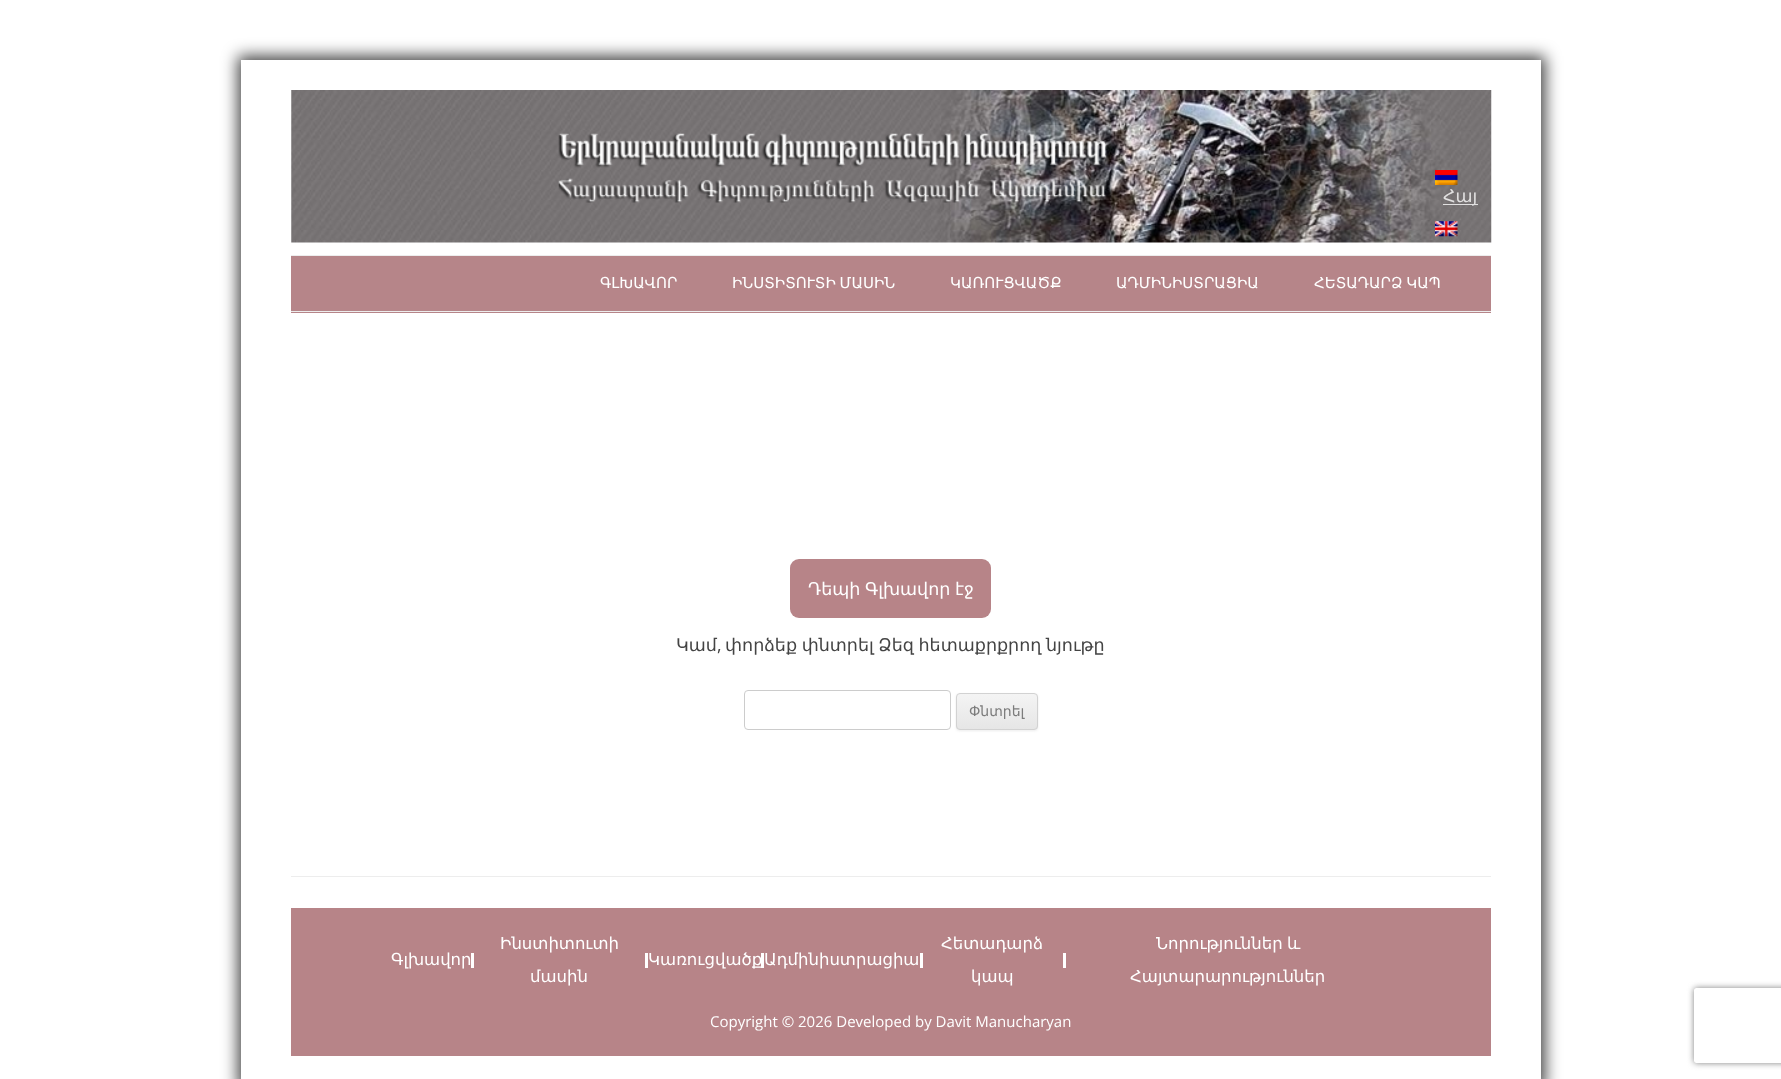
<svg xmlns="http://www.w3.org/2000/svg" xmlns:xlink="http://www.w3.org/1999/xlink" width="1781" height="1079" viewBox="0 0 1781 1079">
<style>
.cls-1{font:17.5px DejaVu Sans;fill:#e1e0e0}
.cls-2{font:15px DejaVu Sans;fill:#ffffff}
.cls-3{font:17.5px DejaVu Sans;fill:#ffffff}
.cls-4{font:17.5px DejaVu Sans;fill:#444444}
.cls-5{font:17.5px Open Sans;fill:#444444}
.cls-6{font:14px DejaVu Sans;fill:#7c7c7c}
.cls-7{font:16.5px DejaVu Sans;fill:#ffffff}
.cls-8{font:15px Open Sans;fill:#ffffff}
</style>
<defs>
<clipPath id="clip1"><rect x="956" y="693" width="82" height="37" rx="4"/></clipPath>
<linearGradient id="g1" gradientUnits="userSpaceOnUse" x1="997" y1="694" x2="997" y2="729"><stop offset="0" stop-color="#f4f4f4"/><stop offset="1" stop-color="#e6e6e6"/></linearGradient>
<clipPath id="clip2"><path d="M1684 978H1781V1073H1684ZM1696.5 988H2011.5C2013 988 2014 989 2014 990.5V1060.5C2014 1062 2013 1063 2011.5 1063H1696.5C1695 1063 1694 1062 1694 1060.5V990.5C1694 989 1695 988 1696.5 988Z" clip-rule="evenodd"/></clipPath>
</defs>
<rect width="100%" height="100%" fill="#ffffff"/>
<rect fill="#000000" fill-opacity="0.75" filter="blur(8px)" x="238" y="56" width="1307" height="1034"/>
<rect fill="#ffffff" x="241" y="60" width="1300" height="1019"/>
<image xlink:href="image0.png" x="291" y="90" width="1201" height="153"/>
<image xlink:href="image1.png" x="558" y="133" width="549" height="70"/>
<image xlink:href="image2.png" x="1435" y="170" width="23" height="15"/>
<rect fill="#e1e0e0" x="1443" y="204" width="35" height="1"/>
<image xlink:href="image3.png" x="1435" y="221" width="23" height="16"/>
<rect fill="#b68589" x="291" y="256" width="1200" height="57"/>
<rect fill="#ededed" x="291" y="255" width="1200" height="1"/>
<rect fill="#ededed" x="291" y="311" width="1200" height="1"/>
<rect fill="#b78488" x="790" y="559" width="201" height="59" rx="9"/>
<rect fill="none" stroke="#cccccc" x="744.5" y="690.5" width="206" height="39" rx="3.5"/>
<rect fill="#404040" fill-opacity="0.1" filter="blur(1px)" x="956" y="694" width="82" height="37" rx="4"/>
<g clip-path="url(#clip1)">
<rect fill="url(#g1)" x="956" y="694" width="82" height="35"/>
</g>
<rect fill="none" stroke="#d2d2d2" x="956.5" y="693.5" width="81" height="36" rx="3.5"/>
<rect fill="#ededed" x="291" y="876" width="1200" height="1"/>
<rect fill="#b78488" x="291" y="908" width="1200" height="148"/>
<rect fill="#ffffff" x="471" y="953" width="3" height="15"/>
<rect fill="#ffffff" x="645" y="953" width="3" height="15"/>
<rect fill="#ffffff" x="761" y="953" width="3" height="15"/>
<rect fill="#ffffff" x="920" y="953" width="3" height="15"/>
<rect fill="#ffffff" x="1063" y="953" width="3" height="15"/>
<g clip-path="url(#clip2)">
<rect fill="#808080" filter="blur(3px)" x="1694" y="988" width="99" height="75" rx="2.5"/>
</g>
<text class="cls-1" x="1443" y="202">Հայ</text>
<text class="cls-2" x="600" y="288">ԳԼԽԱՎՈՐ</text>
<text class="cls-2" x="732" y="288" word-spacing="-1">ԻՆՍՏԻՏՈՒՏԻ ՄԱՍԻՆ</text>
<text class="cls-2" x="950" y="288">ԿԱՌՈՒՑՎԱԾՔ</text>
<text class="cls-2" x="1116" y="288">ԱԴՄԻՆԻՍՏՐԱՑԻԱ</text>
<text class="cls-2" x="1314" y="288" word-spacing="-1">ՀԵՏԱԴԱՐՁ ԿԱՊ</text>
<text class="cls-3" x="808" y="595" word-spacing="-1">Դեպի Գլխավոր էջ</text>
<text class="cls-4" x="676" y="651">Կամ</text>
<text class="cls-5" x="717" y="651">,</text>
<text class="cls-4" x="725" y="651" word-spacing="-1">փորձեք փնտրել Ձեզ հետաքրքրող նյութը</text>
<text class="cls-6" x="969" y="716">Փնտրել</text>
<text class="cls-7" x="391" y="965">Գլխավոր</text>
<text class="cls-7" x="500" y="949">Ինստիտուտի</text>
<text class="cls-7" x="530" y="982">մասին</text>
<text class="cls-7" x="648" y="965">Կառուցվածք</text>
<text class="cls-7" x="764" y="965">Ադմինիստրացիա</text>
<text class="cls-7" x="941" y="949">Հետադարձ</text>
<text class="cls-7" x="971" y="982">կապ</text>
<text class="cls-7" x="1156" y="949" word-spacing="-1">Նորություններ և</text>
<text class="cls-7" x="1130" y="982">Հայտարարություններ</text>
<text class="cls-8" x="710" y="1027">Copyright © 2026 Developed by Davit Manucharyan</text>
</svg>
